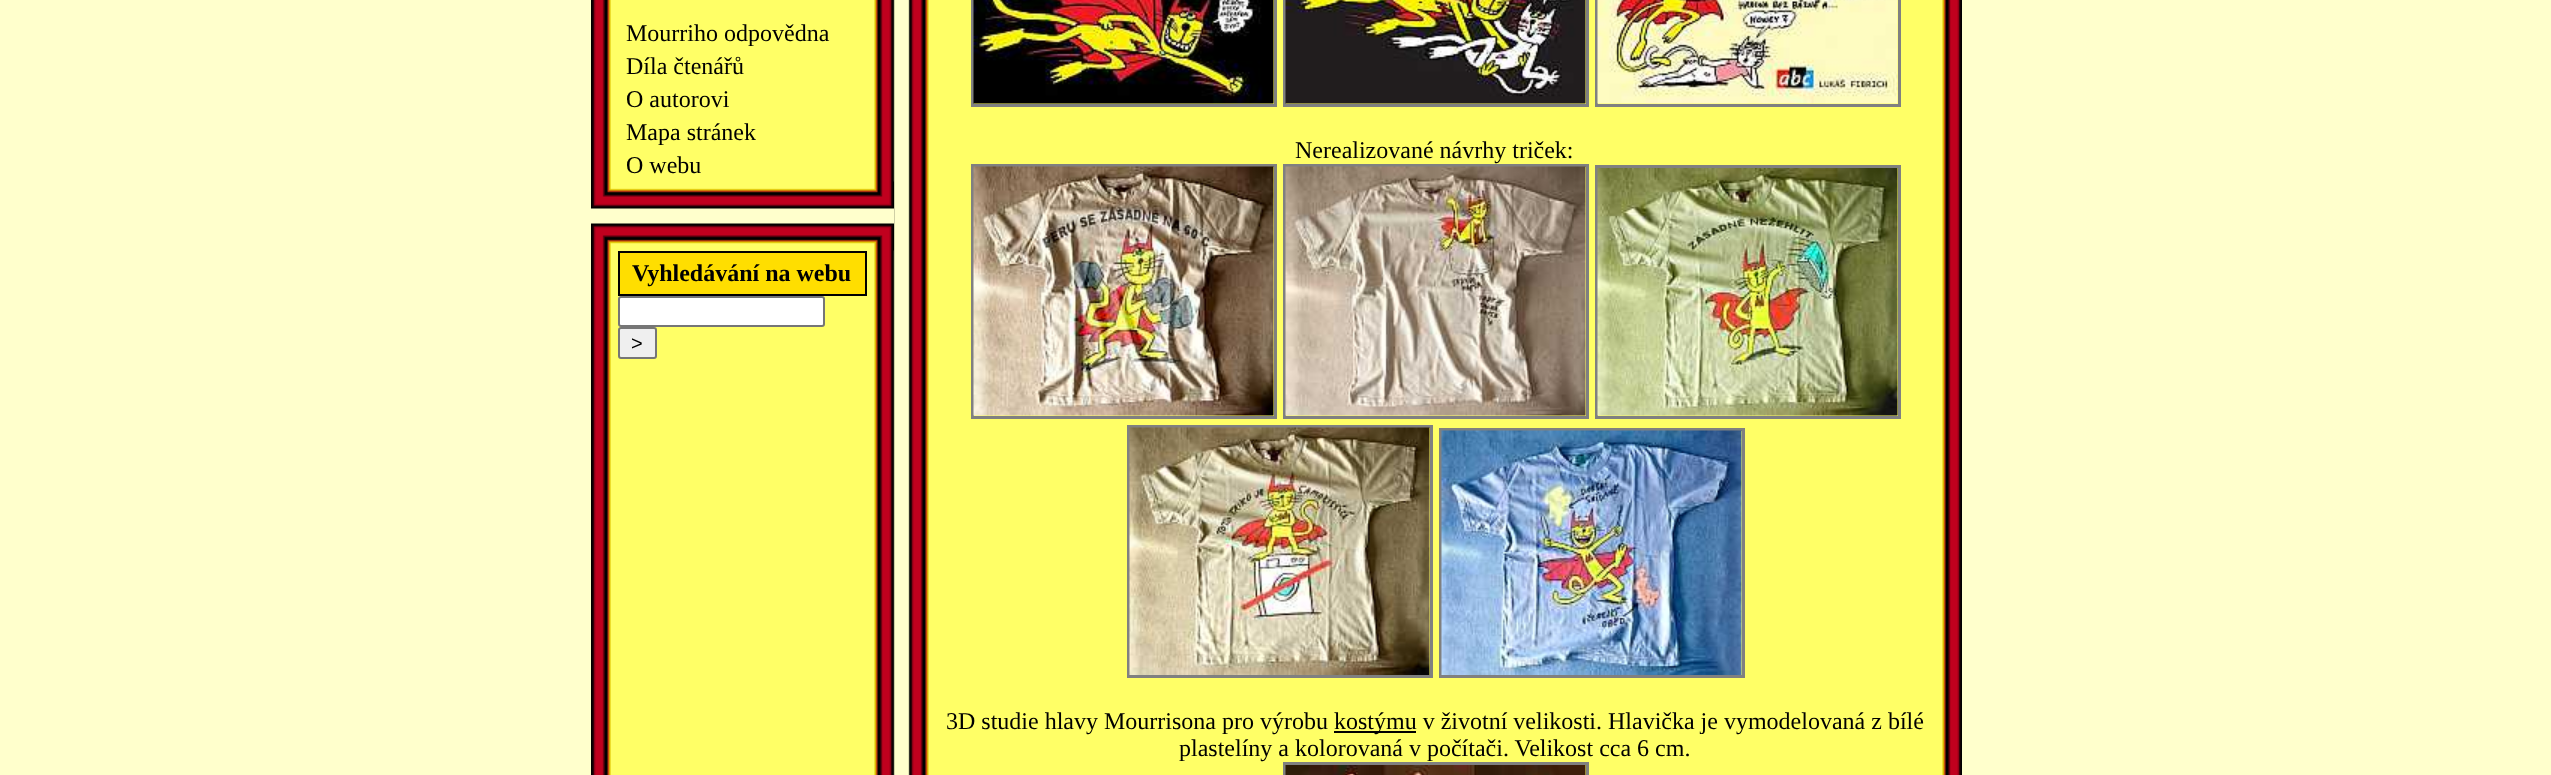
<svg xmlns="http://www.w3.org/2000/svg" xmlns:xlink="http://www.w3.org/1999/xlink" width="2551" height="775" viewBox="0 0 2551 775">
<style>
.cls-1{font:24px Liberation Serif;fill:#000000}
.cls-2{font:bold 24px Liberation Serif;fill:#000000}
.cls-3{font:20px Liberation Sans;fill:#000000}
</style>
<rect width="100%" height="100%" fill="#ffffcc"/>
<image xlink:href="image0.png" x="591" y="0" width="1371" height="775"/>
<image xlink:href="image1.png" x="591" y="181" width="303" height="70"/>
<rect fill="#ffde00" stroke="#000000" stroke-width="2" x="619" y="252" width="247" height="43"/>
<rect fill="#ffffff" stroke="#767676" stroke-width="2" x="619" y="297" width="205" height="29" rx="2"/>
<rect fill="#efefef" stroke="#767676" stroke-width="2" x="619" y="328" width="37" height="30" rx="2"/>
<rect fill="none" stroke="#808080" stroke-width="3" x="972.5" y="-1.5" width="303" height="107"/>
<rect fill="none" stroke="#808080" stroke-width="3" x="1284.5" y="-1.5" width="303" height="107"/>
<rect fill="none" stroke="#808080" stroke-width="3" x="1596.5" y="-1.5" width="303" height="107"/>
<image xlink:href="image2.png" x="973" y="0" width="301" height="104"/>
<image xlink:href="image3.png" x="1285" y="0" width="301" height="104"/>
<image xlink:href="image4.png" x="1597" y="0" width="301" height="104"/>
<rect fill="none" stroke="#808080" stroke-width="3" x="972.5" y="165.5" width="303" height="252"/>
<rect fill="none" stroke="#808080" stroke-width="3" x="1284.5" y="165.5" width="303" height="252"/>
<rect fill="none" stroke="#808080" stroke-width="3" x="1596.5" y="166.5" width="303" height="251"/>
<image xlink:href="image5.png" x="973" y="166" width="301" height="250"/>
<image xlink:href="image6.png" x="1285" y="166" width="301" height="250"/>
<image xlink:href="image7.png" x="1597" y="168" width="301" height="248"/>
<rect fill="none" stroke="#808080" stroke-width="3" x="1128.5" y="426.5" width="303" height="250"/>
<image xlink:href="image8.png" x="1129" y="427" width="301" height="248"/>
<rect fill="none" stroke="#808080" stroke-width="3" x="1440.5" y="429.5" width="303" height="247"/>
<image xlink:href="image9.png" x="1441" y="430" width="301" height="245"/>
<rect fill="#000000" x="1334" y="731" width="82" height="2"/>
<rect fill="none" stroke="#808080" stroke-width="3" x="1284.5" y="763.5" width="303" height="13"/>
<image xlink:href="image10.png" x="1285" y="765" width="301" height="10"/>
<text class="cls-1"><tspan x="626" y="41">Mourriho odpovědna</tspan><tspan x="626" y="74">Díla čtenářů</tspan><tspan x="626" y="107">O autorovi</tspan><tspan x="626" y="140">Mapa stránek</tspan><tspan x="626" y="173">O webu</tspan></text>
<text class="cls-2" x="632" y="281">Vyhledávání na webu</text>
<text class="cls-3" x="631" y="350">&gt;</text>
<text class="cls-1" x="1295" y="158">Nerealizované návrhy triček:</text>
<text class="cls-1" x="946" y="729">3D studie hlavy Mourrisona pro výrobu</text>
<text class="cls-1" x="1334" y="729">kostýmu v životní velikosti. Hlavička je vymodelovaná z bílé</text>
<text class="cls-1" x="1179" y="756">plastelíny a kolorovaná v počítači. Velikost cca 6 cm.</text>
</svg>
